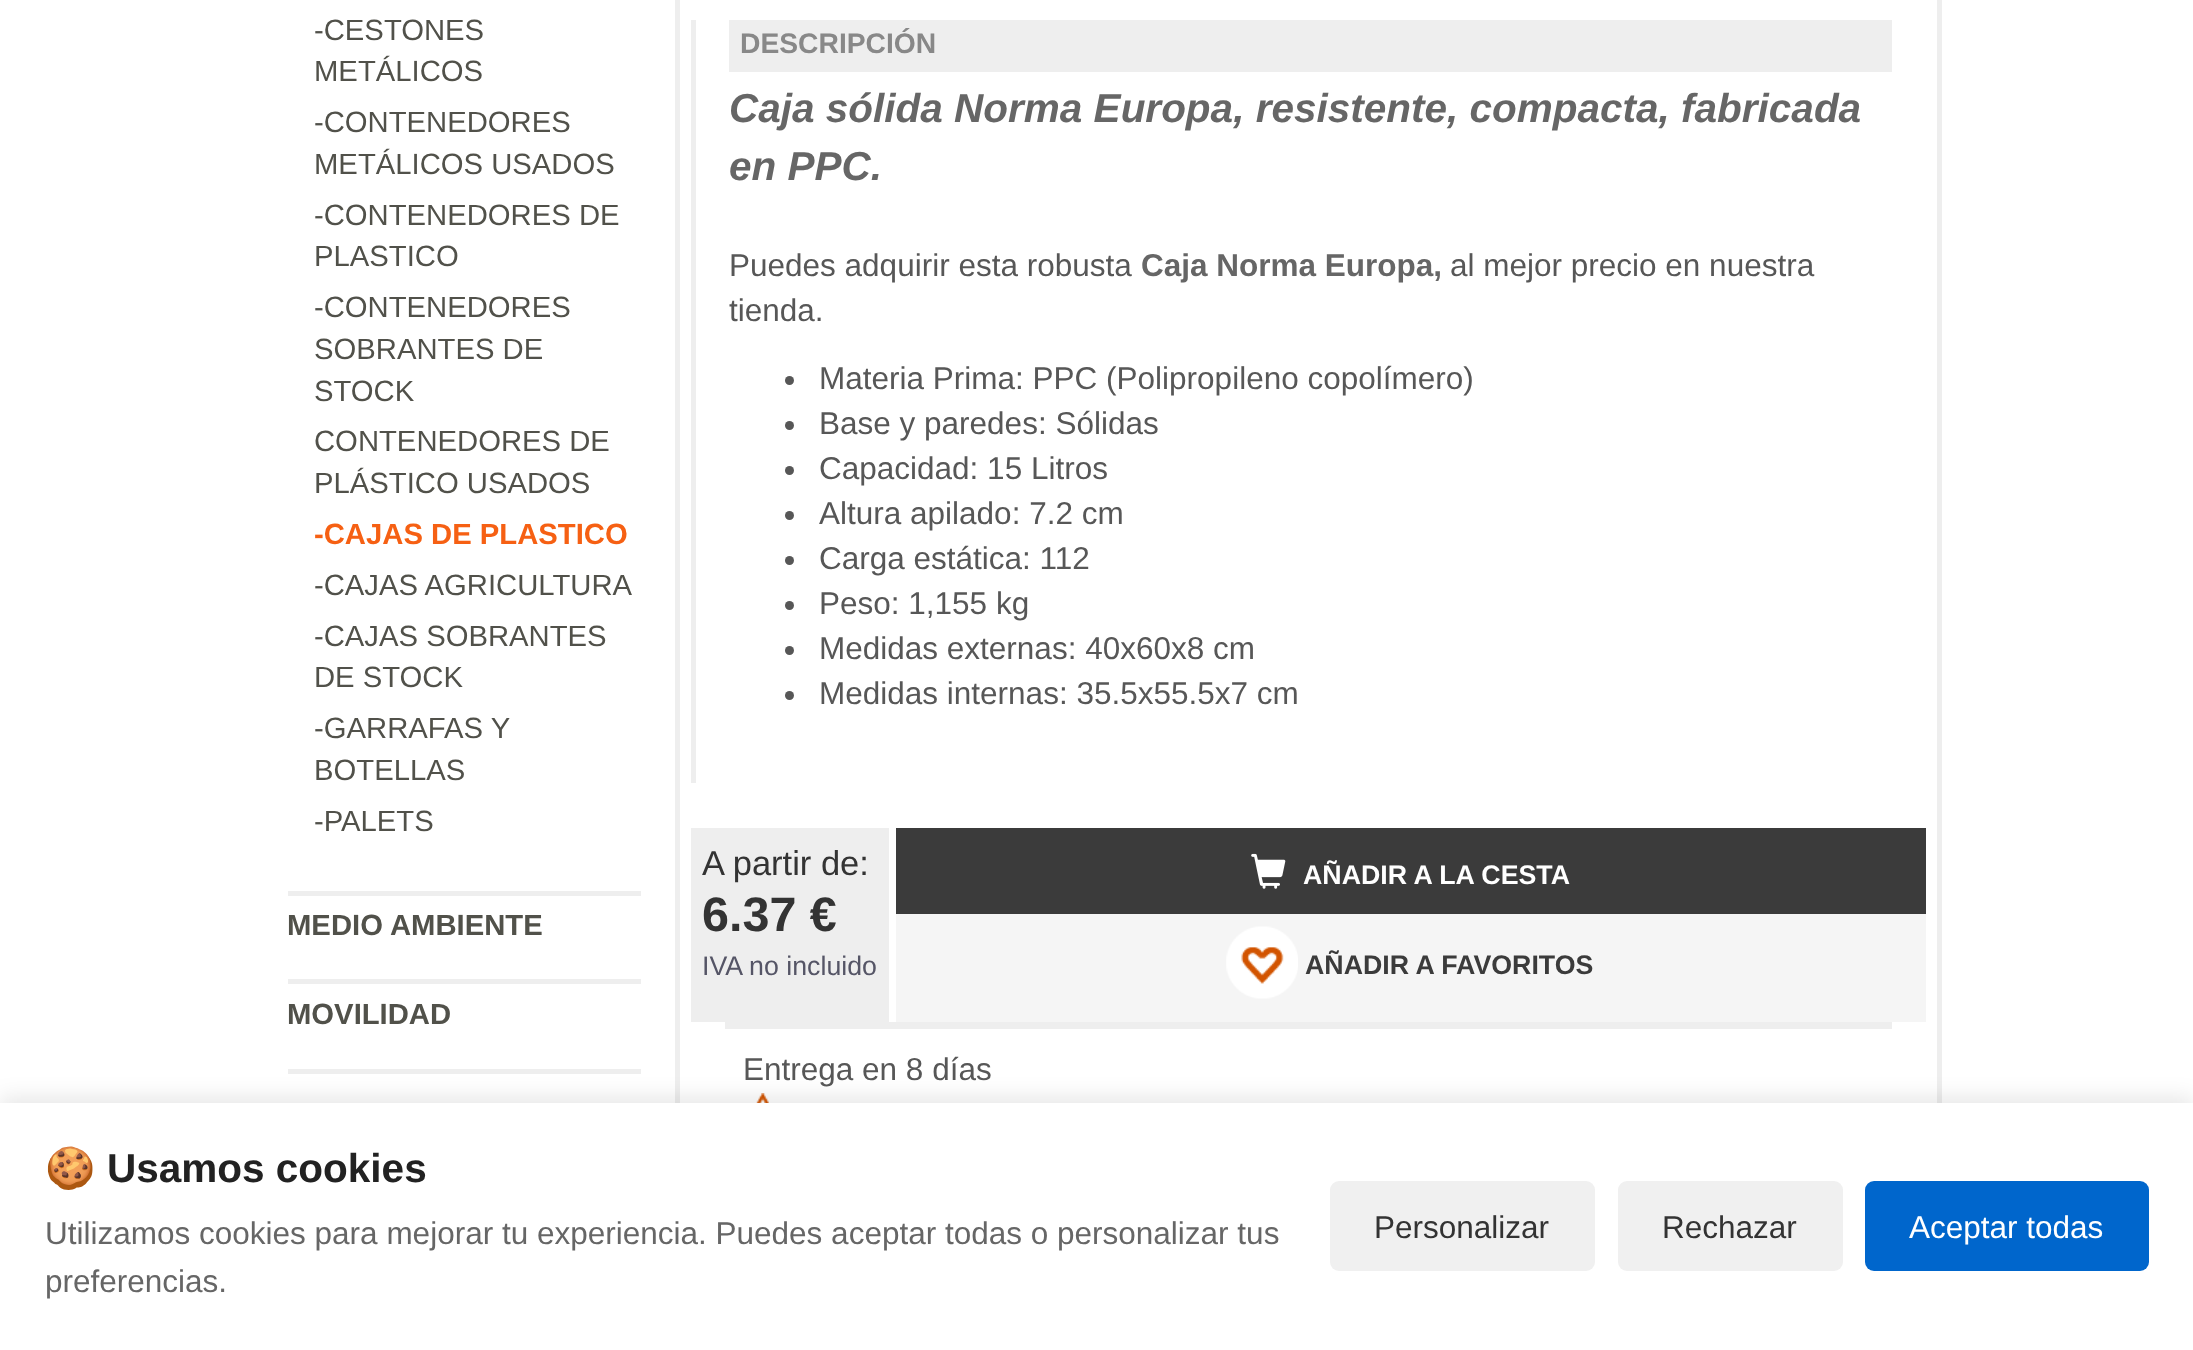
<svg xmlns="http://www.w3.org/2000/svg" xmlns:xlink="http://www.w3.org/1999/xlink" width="2193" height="1350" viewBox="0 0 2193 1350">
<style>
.cls-1{font:29.25px Liberation Sans;fill:#51514a}
.cls-2{font:bold 29.25px Liberation Sans;fill:#f66013}
.cls-3{font:bold 29.25px Liberation Sans;fill:#51514a}
.cls-4{font:bold 28.25px Liberation Sans;fill:#888888}
.cls-5{font:italic bold 40.5px Liberation Sans;fill:#666666}
.cls-6{font:31.5px Liberation Sans;fill:#575757}
.cls-7{font:bold 31.5px Liberation Sans;fill:#666666}
.cls-8{font:34.5px Liberation Sans;fill:#333333}
.cls-9{font:bold 48.5px Liberation Sans;fill:#333333}
.cls-10{font:26.75px Liberation Sans;fill:#555566}
.cls-11{font:bold 26.75px Liberation Sans;fill:#ffffff}
.cls-12{font:bold 26.75px Liberation Sans;fill:#3b3b3b}
.cls-13{font:bold 40.5px Noto Color Emoji;fill:#222222}
.cls-14{font:bold 40.5px Liberation Sans;fill:#222222}
.cls-15{font:31.5px Liberation Sans;fill:#666666}
.cls-16{font:31.5px Liberation Sans;fill:#333333}
.cls-17{font:31.5px Liberation Sans;fill:#ffffff}
</style>
<rect width="100%" height="100%" fill="#ffffff"/>
<rect fill="#eeeeee" x="288" y="891" width="353" height="5"/>
<rect fill="#eeeeee" x="288" y="979" width="353" height="5"/>
<rect fill="#eeeeee" x="288" y="1069" width="353" height="5"/>
<rect fill="none" stroke="#eeeeee" stroke-width="5" x="677.5" y="-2.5" width="1262" height="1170"/>
<rect fill="#eeeeee" x="691" y="20" width="5" height="763"/>
<rect fill="#eeeeee" x="729" y="20" width="1163" height="52"/>
<circle fill="#575757" cx="789.5" cy="380.5" r="4.5"/>
<circle fill="#575757" cx="789.5" cy="425.5" r="4.5"/>
<circle fill="#575757" cx="789.5" cy="470.5" r="4.5"/>
<circle fill="#575757" cx="789.5" cy="515.5" r="4.5"/>
<circle fill="#575757" cx="789.5" cy="560.5" r="4.5"/>
<circle fill="#575757" cx="789.5" cy="605.5" r="4.5"/>
<circle fill="#575757" cx="789.5" cy="650.5" r="4.5"/>
<circle fill="#575757" cx="789.5" cy="695.5" r="4.5"/>
<rect fill="#eeeeee" x="691" y="828" width="198" height="194"/>
<rect fill="#3b3b3b" x="896" y="828" width="1030" height="86"/>
<image xlink:href="image0.png" x="1251" y="853" width="35" height="36"/>
<rect fill="#f5f5f5" x="896" y="914" width="1030" height="108"/>
<image xlink:href="image1.png" x="1226" y="926" width="72" height="73"/>
<rect fill="#eeeeee" x="725" y="1022" width="1167" height="7"/>
<image xlink:href="image2.png" x="756" y="1093" width="13" height="10"/>
<rect fill="#000000" fill-opacity="0.1" filter="blur(11px)" x="0" y="1098" width="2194" height="248"/>
<rect fill="#ffffff" x="0" y="1103" width="2193" height="247"/>
<rect fill="#f0f0f0" x="1330" y="1181" width="265" height="90" rx="9"/>
<rect fill="#f0f0f0" x="1618" y="1181" width="225" height="90" rx="9"/>
<rect fill="#0066cc" x="1865" y="1181" width="284" height="90" rx="9"/>
<text class="cls-1"><tspan x="314" y="40">-CESTONES</tspan><tspan x="314" y="81">METÁLICOS</tspan><tspan x="314" y="132">-CONTENEDORES</tspan><tspan x="314" y="174">METÁLICOS USADOS</tspan><tspan x="314" y="225">-CONTENEDORES DE</tspan><tspan x="314" y="266">PLASTICO</tspan><tspan x="314" y="317">-CONTENEDORES</tspan><tspan x="314" y="359">SOBRANTES DE</tspan><tspan x="314" y="401">STOCK</tspan><tspan x="314" y="451">CONTENEDORES DE</tspan><tspan x="314" y="493">PLÁSTICO USADOS</tspan></text>
<text class="cls-2" x="314" y="544">-CAJAS DE PLASTICO</text>
<text class="cls-1"><tspan x="314" y="595">-CAJAS AGRICULTURA</tspan><tspan x="314" y="646">-CAJAS SOBRANTES</tspan><tspan x="314" y="687">DE STOCK</tspan><tspan x="314" y="738">-GARRAFAS Y</tspan><tspan x="314" y="780">BOTELLAS</tspan><tspan x="314" y="831">-PALETS</tspan></text>
<text class="cls-3" x="287" y="935">MEDIO AMBIENTE</text>
<text class="cls-3" x="287" y="1024">MOVILIDAD</text>
<text class="cls-4" x="740" y="53">DESCRIPCIÓN</text>
<text class="cls-5"><tspan x="729" y="122">Caja sólida Norma Europa, resistente, compacta, fabricada</tspan><tspan x="729" y="180">en PPC.</tspan></text>
<text class="cls-6" x="729" y="276">Puedes adquirir esta robusta</text>
<text class="cls-7" x="1141" y="276">Caja Norma Europa,</text>
<text class="cls-6" x="1450" y="276">al mejor precio en nuestra</text>
<text class="cls-6" x="729" y="321">tienda.</text>
<text class="cls-6"><tspan x="819" y="389">Materia Prima: PPC (Polipropileno copolímero)</tspan><tspan x="819" y="434">Base y paredes: Sólidas</tspan><tspan x="819" y="479">Capacidad: 15 Litros</tspan><tspan x="819" y="524">Altura apilado: 7.2 cm</tspan><tspan x="819" y="569">Carga estática: 112</tspan><tspan x="819" y="614">Peso: 1,155 kg</tspan><tspan x="819" y="659">Medidas externas: 40x60x8 cm</tspan><tspan x="819" y="704">Medidas internas: 35.5x55.5x7 cm</tspan></text>
<text class="cls-8" x="702" y="875">A partir de:</text>
<text class="cls-9" x="702" y="931">6.37 €</text>
<text class="cls-10" x="702" y="975">IVA no incluido</text>
<text class="cls-11" x="1303" y="884">AÑADIR A LA CESTA</text>
<text class="cls-12" x="1305" y="974">AÑADIR A FAVORITOS</text>
<text class="cls-6" x="743" y="1080">Entrega en 8 días</text>
<text class="cls-13" x="45" y="1182">🍪</text>
<text class="cls-14" x="107" y="1182">Usamos cookies</text>
<text class="cls-15"><tspan x="45" y="1244">Utilizamos cookies para mejorar tu experiencia. Puedes aceptar todas o personalizar tus</tspan><tspan x="45" y="1292">preferencias.</tspan></text>
<text class="cls-16" x="1374" y="1238">Personalizar</text>
<text class="cls-16" x="1662" y="1238">Rechazar</text>
<text class="cls-17" x="1909" y="1238">Aceptar todas</text>
</svg>
